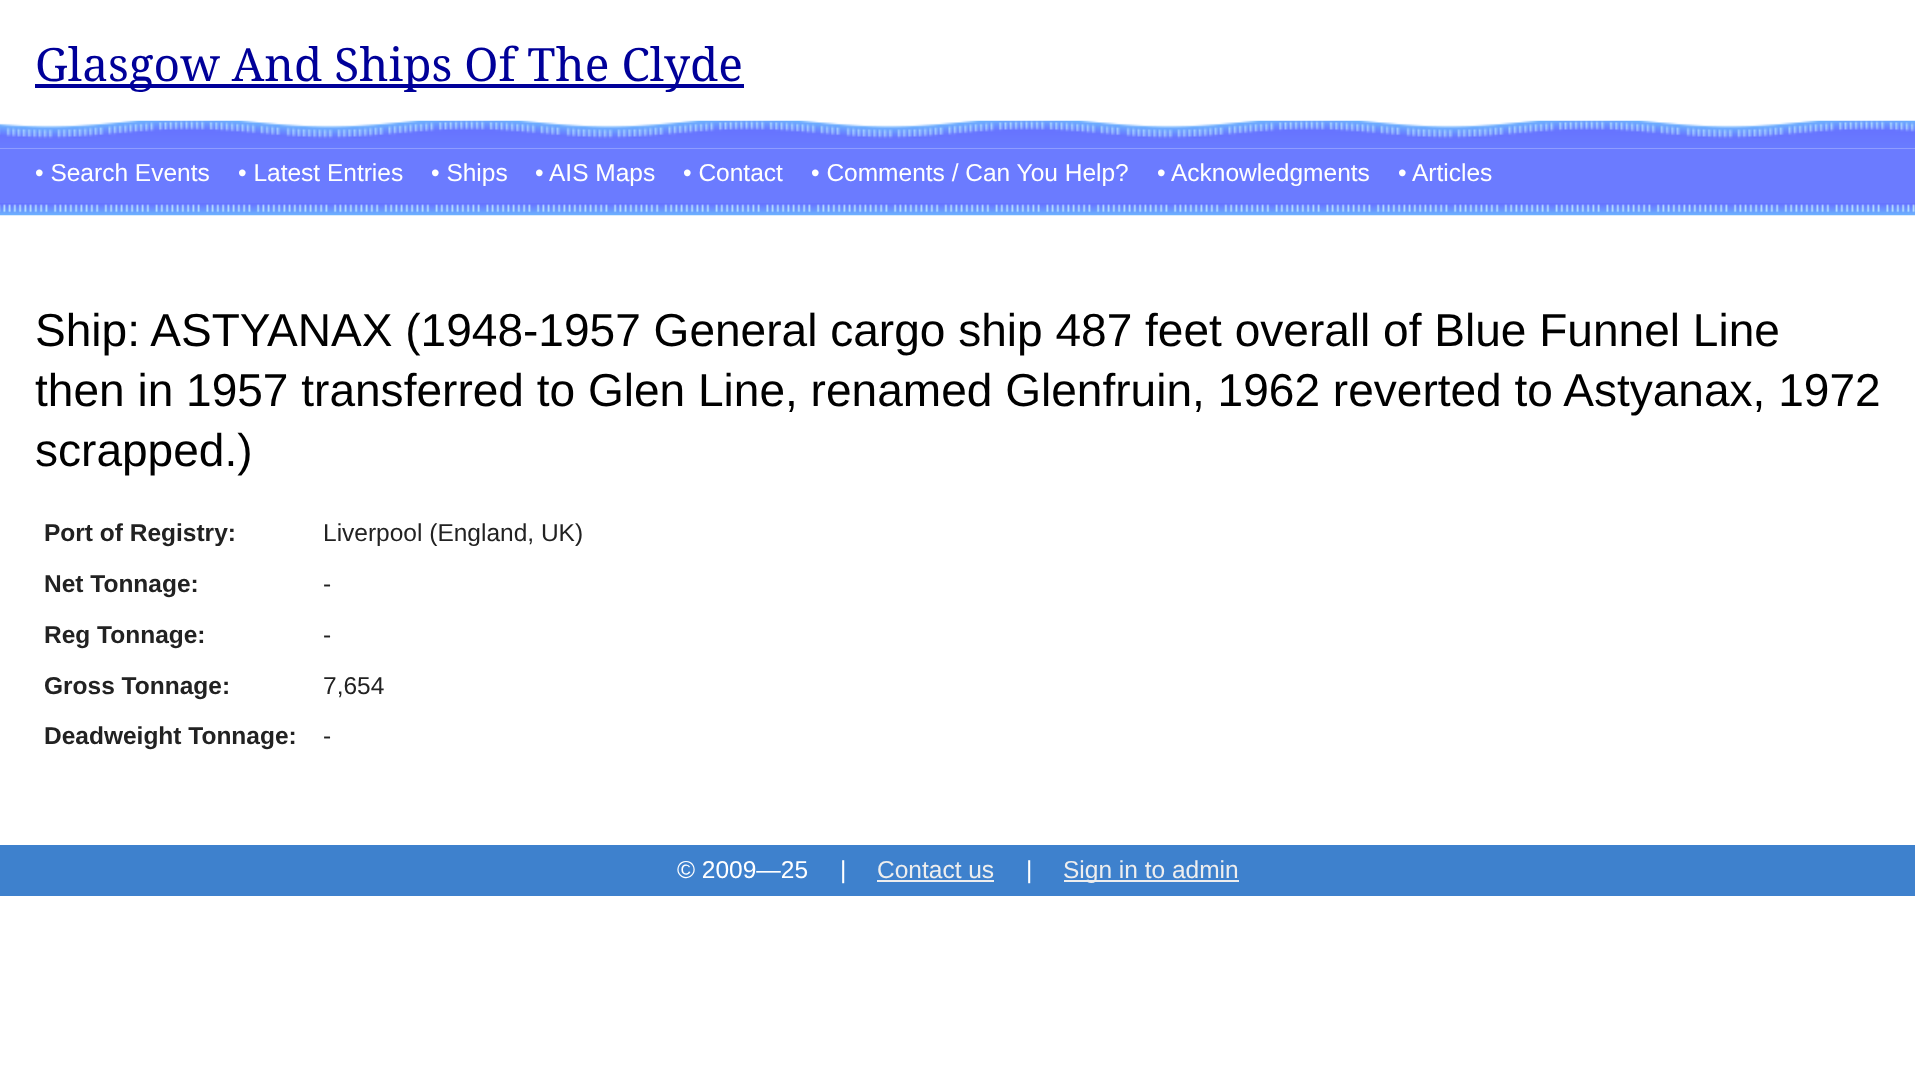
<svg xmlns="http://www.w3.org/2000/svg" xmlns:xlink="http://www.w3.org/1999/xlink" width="1915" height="1074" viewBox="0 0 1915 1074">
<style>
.cls-1{font:46.05px Droid Serif;fill:#000099}
.cls-2{font:24.5px Liberation Sans;fill:#ffffff}
.cls-3{font:46.05px Liberation Sans;fill:#000000}
.cls-4{font:bold 24.5px Liberation Sans;fill:#222222}
.cls-5{font:24.5px Liberation Sans;fill:#222222}
.cls-6{font:24.5px Liberation Sans;fill:#eeeeee}
</style>
<rect width="100%" height="100%" fill="#ffffff"/>
<rect fill="#000099" x="35" y="84" width="709" height="4"/>
<image xlink:href="image0.png" x="0" y="120" width="1915" height="29"/>
<rect fill="#6b7bff" x="0" y="149" width="1915" height="54"/>
<image xlink:href="image1.png" x="0" y="203" width="1915" height="13"/>
<rect fill="#3e81cd" x="0" y="845" width="1915" height="51"/>
<rect fill="#eeeeee" x="877" y="880" width="117" height="2"/>
<rect fill="#eeeeee" x="1064" y="880" width="175" height="2"/>
<text class="cls-1" x="35" y="81">Glasgow And Ships Of The Clyde</text>
<text class="cls-2" x="35" y="181">• Search Events</text>
<text class="cls-2" x="238" y="181">• Latest Entries</text>
<text class="cls-2" x="431" y="181">• Ships</text>
<text class="cls-2" x="535" y="181">•</text>
<text class="cls-2" x="549" y="181">AIS Maps</text>
<text class="cls-2" x="683" y="181">• Contact</text>
<text class="cls-2" x="811" y="181">• Comments / Can You Help?</text>
<text class="cls-2" x="1157" y="181">•</text>
<text class="cls-2" x="1171" y="181">Acknowledgments</text>
<text class="cls-2" x="1398" y="181">• Articles</text>
<text class="cls-3"><tspan x="35" y="346">Ship: ASTYANAX (1948-1957 General cargo ship 487 feet overall of Blue Funnel Line</tspan><tspan x="35" y="406">then in 1957 transferred to Glen Line, renamed Glenfruin, 1962 reverted to Astyanax, 1972</tspan><tspan x="35" y="466">scrapped.)</tspan></text>
<text class="cls-4" x="44" y="541">Port of Registry:</text>
<text class="cls-5" x="323" y="541">Liverpool (England, UK)</text>
<text class="cls-4" x="44" y="592">Net Tonnage:</text>
<text class="cls-5" x="323" y="592">-</text>
<text class="cls-4" x="44" y="643">Reg Tonnage:</text>
<text class="cls-5" x="323" y="643">-</text>
<text class="cls-4" x="44" y="694">Gross Tonnage:</text>
<text class="cls-5" x="323" y="694">7,654</text>
<text class="cls-4" x="44" y="744">Deadweight Tonnage:</text>
<text class="cls-5" x="323" y="744">-</text>
<text class="cls-2" x="677" y="878">© 2009—25</text>
<text class="cls-2" x="840" y="878">|</text>
<text class="cls-6" x="877" y="878">Contact us</text>
<text class="cls-2" x="1026" y="878">|</text>
<text class="cls-6" x="1063" y="878">Sign in to admin</text>
</svg>
